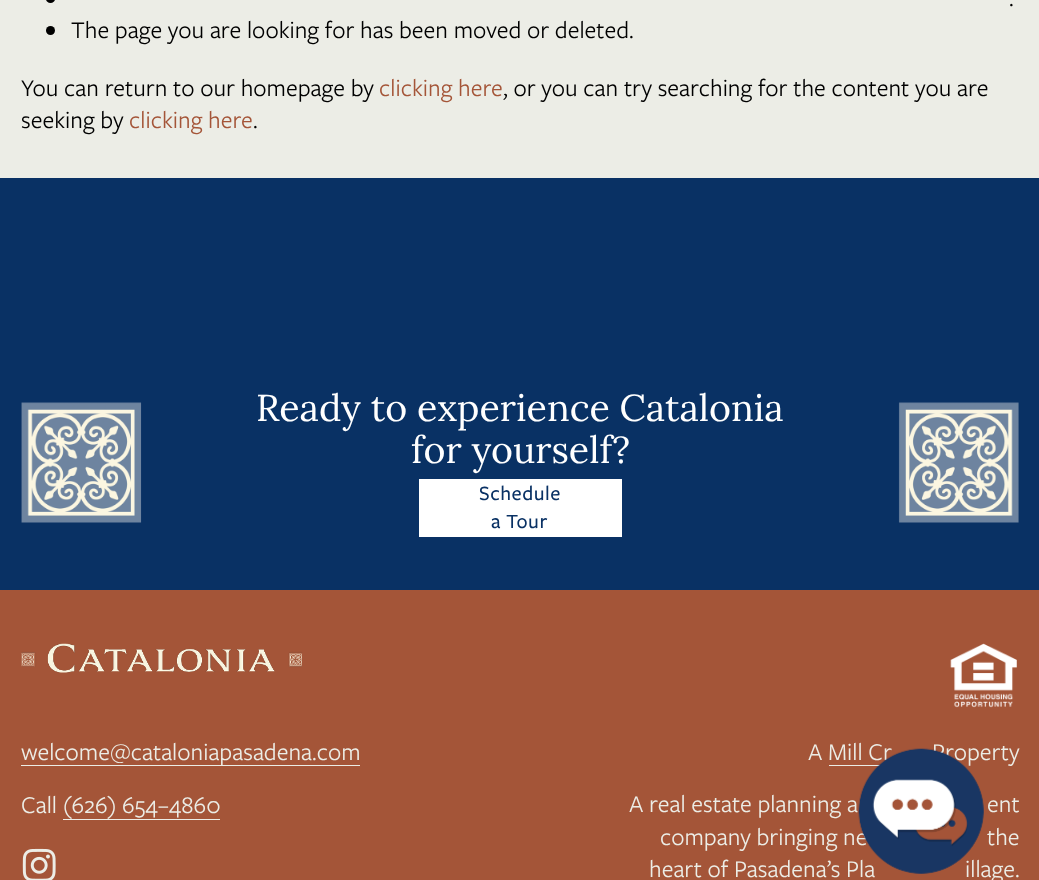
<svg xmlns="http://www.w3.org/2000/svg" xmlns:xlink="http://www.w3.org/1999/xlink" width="1039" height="880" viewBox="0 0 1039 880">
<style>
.cls-1{font:25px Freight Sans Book;fill:#000000}
.cls-2{font:25px Freight Sans Book;fill:#a45538}
.cls-3{font:37.5px Lora;fill:#ffffff}
.cls-4{font:500 21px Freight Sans;letter-spacing:0.5px;fill:#093164}
.cls-5{font:25px Freight Sans Book;fill:#ecede6}
</style>
<rect width="100%" height="100%" fill="#ecede6"/>
<rect fill="#000000" x="46" y="-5" width="9" height="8" rx="4.5"/>
<circle fill="#000000" cx="50.5" cy="30.5" r="4.5"/>
<rect fill="#093164" x="0" y="178" width="1039" height="412"/>
<image xlink:href="image0.png" x="21" y="402" width="121" height="121"/>
<image xlink:href="image1.png" x="898" y="402" width="121" height="121"/>
<rect fill="#ffffff" x="419" y="479" width="203" height="58"/>
<rect fill="#a45538" x="0" y="590" width="1039" height="290"/>
<image xlink:href="image2.png" x="21" y="643" width="282" height="30"/>
<image xlink:href="image3.png" x="950" y="643" width="67" height="65"/>
<rect fill="#ecede6" x="21" y="765" width="339" height="1"/>
<rect fill="#ecede6" x="829" y="765" width="51" height="1"/>
<rect fill="#ecede6" x="63" y="819" width="157" height="1"/>
<image xlink:href="image4.png" x="22" y="848" width="34" height="32"/>
<text class="cls-1" x="1009" y="6">.</text>
<text class="cls-1" x="71" y="38">The page you are looking for has been moved or deleted.</text>
<text class="cls-1" x="21" y="96">You can return to our homepage by</text>
<text class="cls-2" x="379" y="96">clicking here</text>
<text class="cls-1" x="503" y="96">, or you can try searching for the content you are</text>
<text class="cls-1" x="21" y="128">seeking by</text>
<text class="cls-2" x="129" y="128">clicking here</text>
<text class="cls-1" x="253" y="128">.</text>
<text class="cls-3" x="256" y="421">Ready to experience Catalonia</text>
<text class="cls-3" x="411" y="463">for yourself?</text>
<text class="cls-4" x="479" y="500">Schedule</text>
<text class="cls-4" x="491" y="528">a Tour</text>
<text class="cls-5" x="21" y="760">welcome@cataloniapasadena.com</text>
<text class="cls-5" x="808" y="760">A Mill Cr</text>
<text class="cls-5" x="932" y="760">Property</text>
<text class="cls-5" x="629" y="812">A real estate planning a</text>
<text class="cls-5" x="987" y="812">ent</text>
<text class="cls-5" x="660" y="845">company bringing ne</text>
<text class="cls-5" x="987" y="845">the</text>
<text class="cls-5" x="649" y="877">heart of Pasadena’s Pla</text>
<text class="cls-5" x="965" y="877">illage.</text>
<text class="cls-5" x="21" y="813">Call (626) 654–4860</text>
<image xlink:href="image5.png" x="858" y="748" width="126" height="126"/>
</svg>
